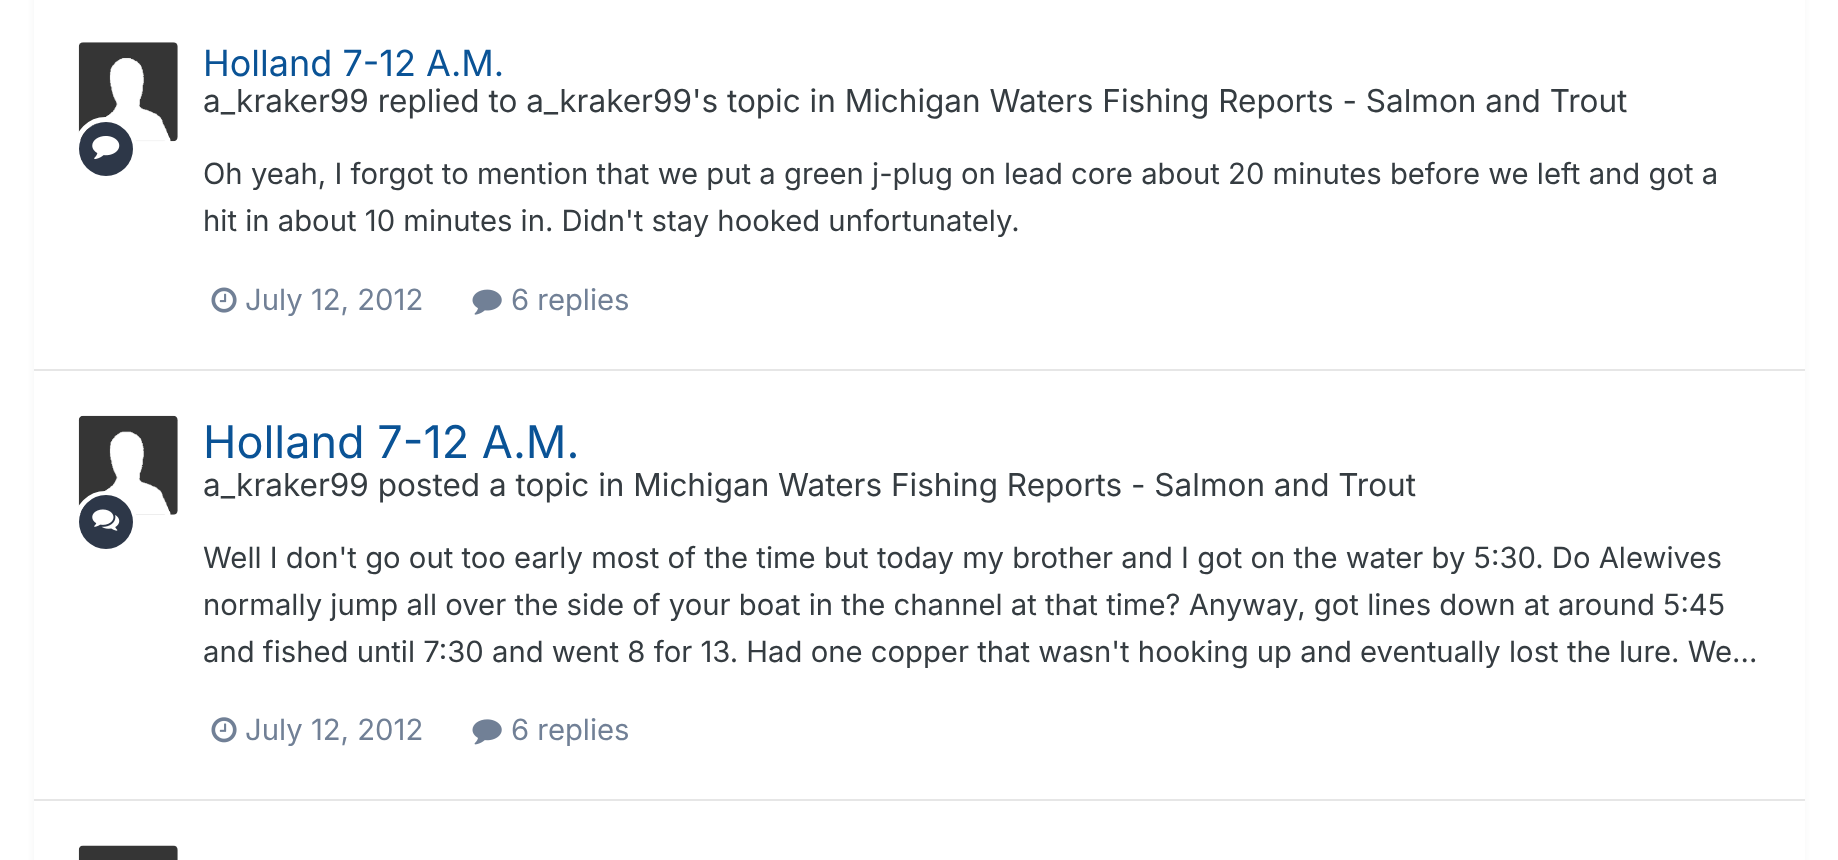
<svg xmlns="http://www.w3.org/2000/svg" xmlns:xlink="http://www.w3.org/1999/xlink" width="1838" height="860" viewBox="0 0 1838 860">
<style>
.cls-1{font:36px Inter;fill:#0a5396}
.cls-2{font:31.5px Inter;fill:#353c41}
.cls-3{font:29.25px Inter;fill:#353c41}
.cls-4{font:29.25px Inter;fill:#718096}
.cls-5{font:45px Inter;fill:#0a5396}
</style>
<rect width="100%" height="100%" fill="#ffffff"/>
<rect fill="#2d3748" fill-opacity="0.1" filter="blur(4.5px)" x="36" y="-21" width="1766" height="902" rx="7"/>
<rect fill="#ffffff" x="34" y="0" width="1771" height="860"/>
<rect fill="#e6e6e6" x="34" y="369" width="1771" height="2"/>
<image xlink:href="image0.png" x="78" y="42" width="100" height="100"/>
<circle fill="none" stroke="#ffffff" stroke-width="5" cx="105.5" cy="148.5" r="29"/>
<circle fill="#2d3748" cx="106" cy="149" r="27"/>
<image xlink:href="image1.png" x="92" y="136" width="28" height="24"/>
<image xlink:href="image2.png" x="211" y="287" width="26" height="26"/>
<image xlink:href="image3.png" x="472" y="289" width="30" height="26"/>
<rect fill="#e6e6e6" x="34" y="799" width="1771" height="2"/>
<image xlink:href="image4.png" x="78" y="415" width="100" height="100"/>
<circle fill="none" stroke="#ffffff" stroke-width="5" cx="105.5" cy="522.5" r="29"/>
<circle fill="#2d3748" cx="106" cy="522" r="27"/>
<image xlink:href="image5.png" x="92" y="509" width="28" height="22"/>
<image xlink:href="image6.png" x="211" y="717" width="26" height="26"/>
<image xlink:href="image7.png" x="472" y="719" width="30" height="26"/>
<image xlink:href="image8.png" x="78" y="845" width="100" height="15"/>
<text class="cls-1" x="203" y="76">Holland 7-12 A.M.</text>
<text class="cls-2" x="203" y="112">a_kraker99 replied to a_kraker99's topic in Michigan Waters Fishing Reports - Salmon and Trout</text>
<text class="cls-3"><tspan x="203" y="184">Oh yeah, I forgot to mention that we put a green j-plug on lead core about 20 minutes before we left and got a</tspan><tspan x="203" y="231">hit in about 10 minutes in. Didn't stay hooked unfortunately.</tspan></text>
<text class="cls-4" x="245" y="310">July 12, 2012</text>
<text class="cls-4" x="511" y="310">6 replies</text>
<text class="cls-5" x="203" y="458">Holland 7-12 A.M.</text>
<text class="cls-2" x="203" y="496">a_kraker99 posted a topic in Michigan Waters Fishing Reports - Salmon and Trout</text>
<text class="cls-3"><tspan x="203" y="568">Well I don't go out too early most of the time but today my brother and I got on the water by 5:30. Do Alewives</tspan><tspan x="203" y="615">normally jump all over the side of your boat in the channel at that time? Anyway, got lines down at around 5:45</tspan><tspan x="203" y="662">and fished until 7:30 and went 8 for 13. Had one copper that wasn't hooking up and eventually lost the lure. We...</tspan></text>
<text class="cls-4" x="245" y="740">July 12, 2012</text>
<text class="cls-4" x="511" y="740">6 replies</text>
</svg>
